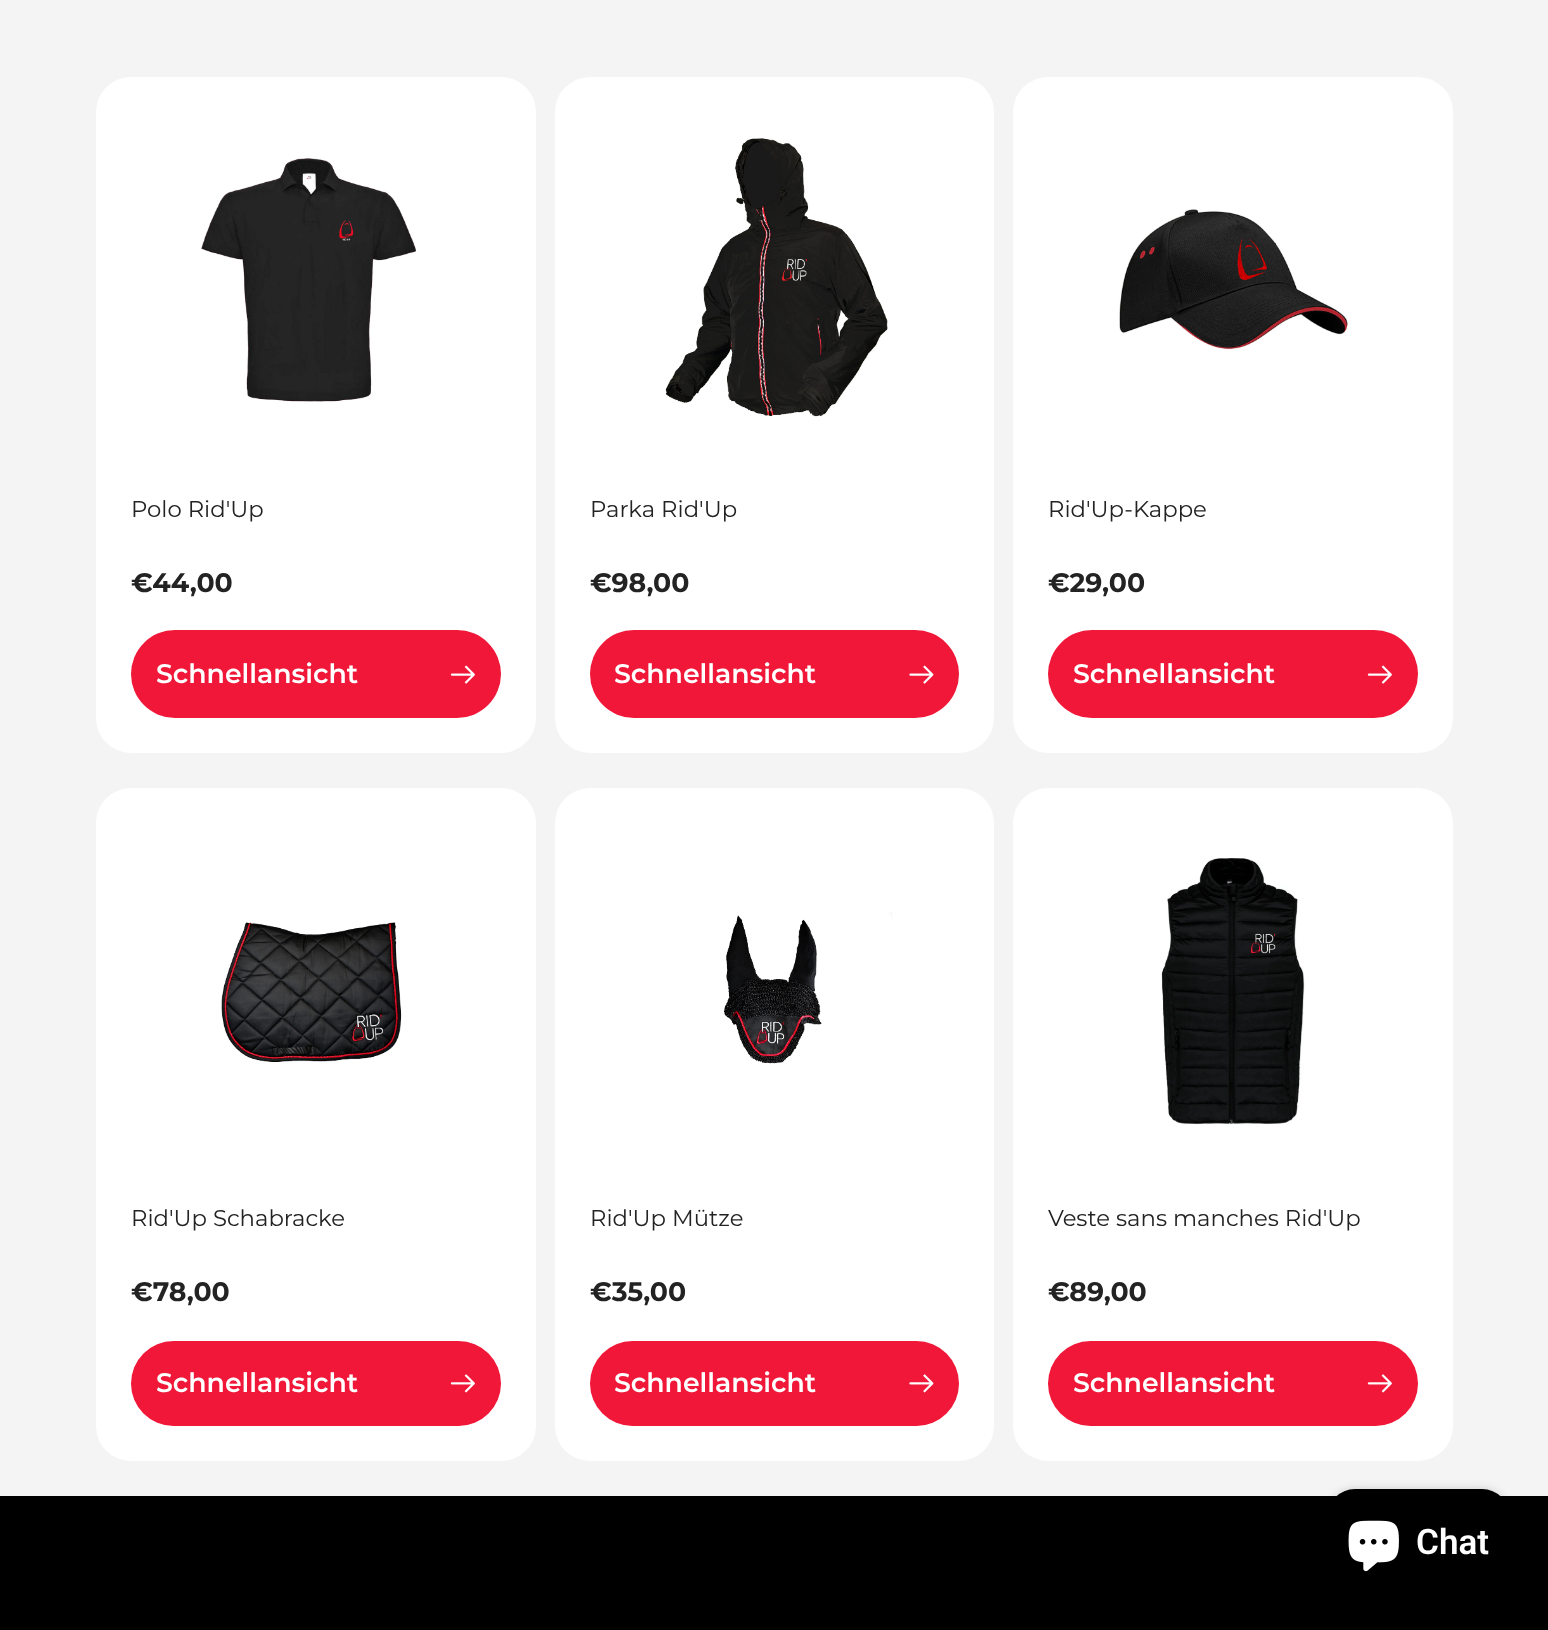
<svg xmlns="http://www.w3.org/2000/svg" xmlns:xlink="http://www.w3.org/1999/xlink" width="1548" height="1630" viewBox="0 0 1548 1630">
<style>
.cls-1{font:22.75px Montserrat;fill:#232323}
.cls-2{font:bold 26.75px Montserrat;fill:#232323}
.cls-3{font:600 26.75px Montserrat;fill:#ffffff}
.cls-4{font:600 35px Roboto;fill:#ffffff}
</style>
<rect width="100%" height="100%" fill="#f4f4f4"/>
<rect fill="#ffffff" x="96" y="77" width="440" height="676" rx="35"/>
<image xlink:href="image0.png" x="201" y="158" width="215" height="244"/>
<rect fill="#f01738" x="131" y="630" width="370" height="88" rx="44"/>
<image xlink:href="image1.png" x="450" y="665" width="25" height="19"/>
<rect fill="#ffffff" x="555" y="77" width="439" height="676" rx="35"/>
<image xlink:href="image2.png" x="665" y="138" width="223" height="279"/>
<rect fill="#f01738" x="590" y="630" width="369" height="88" rx="44"/>
<image xlink:href="image3.png" x="909" y="665" width="25" height="19"/>
<rect fill="#ffffff" x="1013" y="77" width="440" height="676" rx="35"/>
<image xlink:href="image4.png" x="1119" y="209" width="229" height="141"/>
<rect fill="#f01738" x="1048" y="630" width="370" height="88" rx="44"/>
<image xlink:href="image1.png" x="1367" y="665" width="25" height="19"/>
<rect fill="#ffffff" x="96" y="788" width="440" height="673" rx="35"/>
<image xlink:href="image5.png" x="221" y="922" width="181" height="140"/>
<rect fill="#f01738" x="131" y="1341" width="370" height="85" rx="42.5"/>
<image xlink:href="image6.png" x="450" y="1374" width="25" height="19"/>
<rect fill="#ffffff" x="555" y="788" width="439" height="673" rx="35"/>
<image xlink:href="image7.png" x="723" y="912" width="170" height="152"/>
<rect fill="#f01738" x="590" y="1341" width="369" height="85" rx="42.5"/>
<image xlink:href="image8.png" x="909" y="1374" width="25" height="19"/>
<rect fill="#ffffff" x="1013" y="788" width="440" height="673" rx="35"/>
<image xlink:href="image9.png" x="1161" y="858" width="144" height="267"/>
<rect fill="#f01738" x="1048" y="1341" width="370" height="85" rx="42.5"/>
<image xlink:href="image6.png" x="1367" y="1374" width="25" height="19"/>
<rect fill="#000000" x="0" y="1496" width="1548" height="134"/>
<rect fill="#000000" fill-opacity="0.15" filter="blur(4.5px)" x="1327" y="1489" width="183" height="105" rx="28"/>
<rect fill="#000000" x="1327" y="1489" width="183" height="105" rx="28"/>
<image xlink:href="image10.png" x="1348" y="1520" width="51" height="52"/>
<text class="cls-1" x="131" y="517">Polo Rid'Up</text>
<text class="cls-2" x="131" y="592">€44,00</text>
<text class="cls-3" x="156" y="683">Schnellansicht</text>
<text class="cls-1" x="590" y="517">Parka Rid'Up</text>
<text class="cls-2" x="590" y="592">€98,00</text>
<text class="cls-3" x="614" y="683">Schnellansicht</text>
<text class="cls-1" x="1048" y="517">Rid'Up-Kappe</text>
<text class="cls-2" x="1048" y="592">€29,00</text>
<text class="cls-3" x="1073" y="683">Schnellansicht</text>
<text class="cls-1" x="131" y="1226">Rid'Up Schabracke</text>
<text class="cls-2" x="131" y="1301">€78,00</text>
<text class="cls-3" x="156" y="1392">Schnellansicht</text>
<text class="cls-1" x="590" y="1226">Rid'Up Mütze</text>
<text class="cls-2" x="590" y="1301">€35,00</text>
<text class="cls-3" x="614" y="1392">Schnellansicht</text>
<text class="cls-1" x="1048" y="1226">Veste sans manches Rid'Up</text>
<text class="cls-2" x="1048" y="1301">€89,00</text>
<text class="cls-3" x="1073" y="1392">Schnellansicht</text>
<text class="cls-4" x="1416" y="1554">Chat</text>
</svg>
